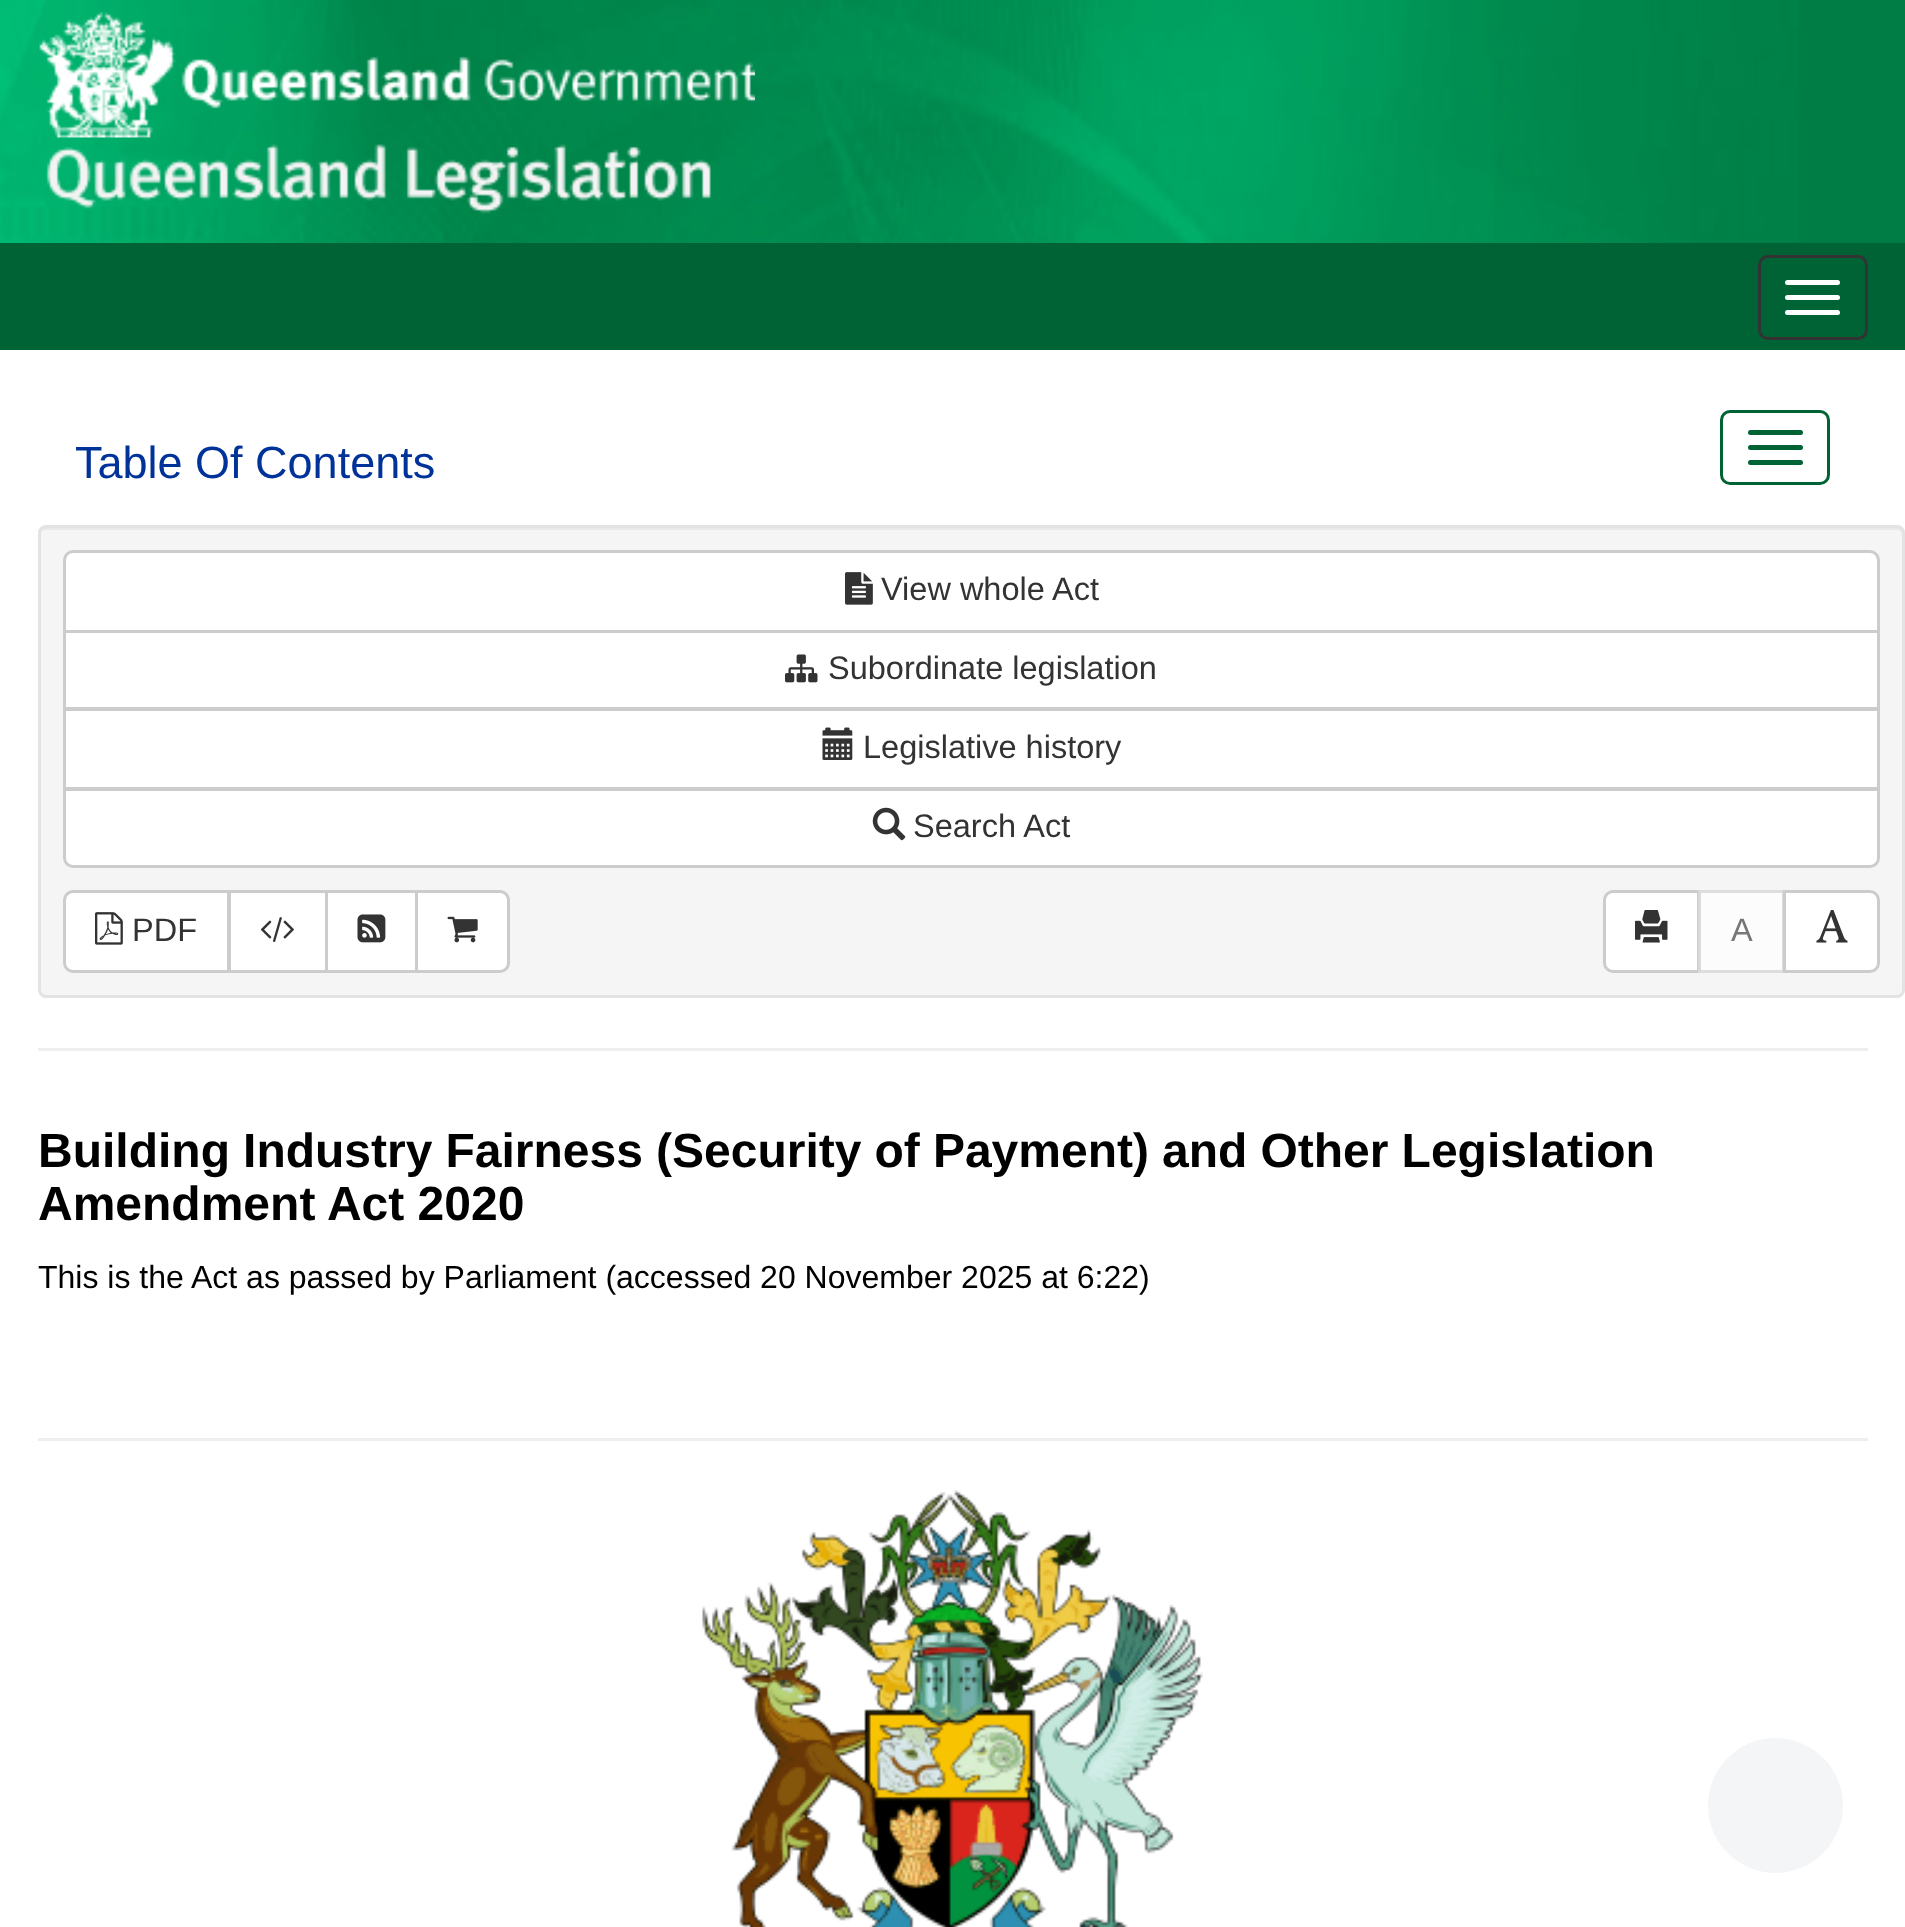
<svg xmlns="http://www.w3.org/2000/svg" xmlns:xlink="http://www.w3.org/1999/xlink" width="1905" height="1927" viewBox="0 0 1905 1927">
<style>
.cls-1{font:45px Liberation Sans;fill:#003399}
.cls-2{font:32.5px Liberation Sans;fill:#333333}
.cls-3{font:32.5px Liberation Sans;fill:#777777}
.cls-4{font:bold 48px Liberation Sans;fill:#000000}
.cls-5{font:32px Liberation Sans;fill:#000000}
</style>
<rect width="100%" height="100%" fill="#ffffff"/>
<rect fill="#007d45" x="1799" y="0" width="106" height="243"/>
<image xlink:href="image0.png" x="0" y="0" width="1799" height="243"/>
<image xlink:href="image1.png" x="39" y="12" width="716" height="126"/>
<image xlink:href="image2.png" x="46" y="144" width="665" height="70"/>
<rect fill="#006336" x="0" y="243" width="1905" height="107"/>
<rect fill="none" stroke="#333333" stroke-width="3" x="1759.5" y="256.5" width="107" height="82" rx="8.5"/>
<rect fill="#ffffff" x="1785" y="280" width="55" height="5" rx="2.5"/>
<rect fill="#ffffff" x="1785" y="295" width="55" height="5" rx="2.5"/>
<rect fill="#ffffff" x="1785" y="310" width="55" height="5" rx="2.5"/>
<rect fill="none" stroke="#006336" stroke-width="3" x="1721.5" y="411.5" width="107" height="72" rx="8.5"/>
<rect fill="#006336" x="1748" y="430" width="55" height="5" rx="2.5"/>
<rect fill="#006336" x="1748" y="445" width="55" height="5" rx="2.5"/>
<rect fill="#006336" x="1748" y="460" width="55" height="5" rx="2.5"/>
<rect fill="#f5f5f5" x="38" y="525" width="1867" height="473" rx="8"/>
<path fill="#e9e9e9" d="M45 530H1898C1900 530 1902 532 1902 535V993C1903 992 1903 991 1903 990V533C1903 530 1901 528 1898 528H45C42 528 40 530 40 533V535C40 532 42 530 45 530Z"/>
<rect fill="none" stroke="#e3e3e3" stroke-width="3" x="39.5" y="526.5" width="1864" height="470" rx="6.5"/>
<path fill="#ffffff" stroke="#cccccc" stroke-width="3" d="M73 551.5H1870C1874.5 551.5 1878.5 555.5 1878.5 560V631.5H64.5V560C64.5 555.5 68.5 551.5 73 551.5Z"/>
<image xlink:href="image3.png" x="845" y="572" width="28" height="33"/>
<rect fill="#ffffff" stroke="#cccccc" stroke-width="3" x="64.5" y="631.5" width="1814" height="77"/>
<image xlink:href="image4.png" x="785" y="654" width="33" height="29"/>
<rect fill="#ffffff" stroke="#cccccc" stroke-width="3" x="64.5" y="709.5" width="1814" height="79"/>
<image xlink:href="image5.png" x="822" y="727" width="31" height="33"/>
<path fill="#ffffff" stroke="#cccccc" stroke-width="3" d="M64.5 789.5H1878.5V858C1878.5 862.5 1874.5 866.5 1870 866.5H73C68.5 866.5 64.5 862.5 64.5 858Z"/>
<image xlink:href="image6.png" x="872" y="807" width="34" height="34"/>
<path fill="#ffffff" stroke="#cccccc" stroke-width="3" d="M73 891.5H228.5V971.5H73C68.5 971.5 64.5 967.5 64.5 963V900C64.5 895.5 68.5 891.5 73 891.5Z"/>
<image xlink:href="image7.png" x="95" y="912" width="28" height="33"/>
<rect fill="#ffffff" stroke="#cccccc" stroke-width="3" x="229.5" y="891.5" width="97" height="80"/>
<image xlink:href="image8.png" x="260" y="917" width="34" height="25"/>
<rect fill="#ffffff" stroke="#cccccc" stroke-width="3" x="326.5" y="891.5" width="90" height="80"/>
<image xlink:href="image9.png" x="357" y="914" width="29" height="29"/>
<path fill="#ffffff" stroke="#cccccc" stroke-width="3" d="M416.5 891.5H500C504.5 891.5 508.5 895.5 508.5 900V963C508.5 967.5 504.5 971.5 500 971.5H416.5Z"/>
<image xlink:href="image10.png" x="447" y="916" width="31" height="27"/>
<path fill="#ffffff" stroke="#cccccc" stroke-width="3" d="M1613 891.5H1698.5V971.5H1613C1608.5 971.5 1604.5 967.5 1604.5 963V900C1604.5 895.5 1608.5 891.5 1613 891.5Z"/>
<image xlink:href="image11.png" x="1635" y="910" width="33" height="33"/>
<rect fill="#ffffff" fill-opacity="0.65" x="1698" y="890" width="85" height="83"/>
<rect fill="none" stroke="#cccccc" stroke-opacity="0.65" stroke-width="3" x="1699.5" y="891.5" width="84" height="80"/>
<path fill="#ffffff" stroke="#cccccc" stroke-width="3" d="M1784.5 891.5H1870C1874.5 891.5 1878.5 895.5 1878.5 900V963C1878.5 967.5 1874.5 971.5 1870 971.5H1784.5Z"/>
<image xlink:href="image12.png" x="1816" y="910" width="32" height="33"/>
<rect fill="#eeeeee" x="38" y="1048" width="1830" height="3"/>
<rect fill="#eeeeee" x="38" y="1438" width="1830" height="3"/>
<image xlink:href="image13.png" x="702" y="1490" width="501" height="437"/>
<circle fill="#f4f5f6" cx="1775.5" cy="1805.5" r="67.5"/>
<text class="cls-1" x="75" y="478">Table Of Contents</text>
<text class="cls-2" x="881" y="600">View whole Act</text>
<text class="cls-2" x="828" y="679">Subordinate legislation</text>
<text class="cls-2" x="863" y="758">Legislative history</text>
<text class="cls-2" x="913" y="837">Search Act</text>
<text class="cls-2" x="132" y="941">PDF</text>
<text class="cls-3" x="1731" y="941">A</text>
<text class="cls-4"><tspan x="38" y="1167" word-spacing="-0.25">Building Industry Fairness (Security of Payment) and Other Legislation</tspan><tspan x="38" y="1220">Amendment Act 2020</tspan></text>
<text class="cls-5" x="38" y="1288">This is the Act as passed by Parliament (accessed 20 November 2025 at 6:22)</text>
</svg>
